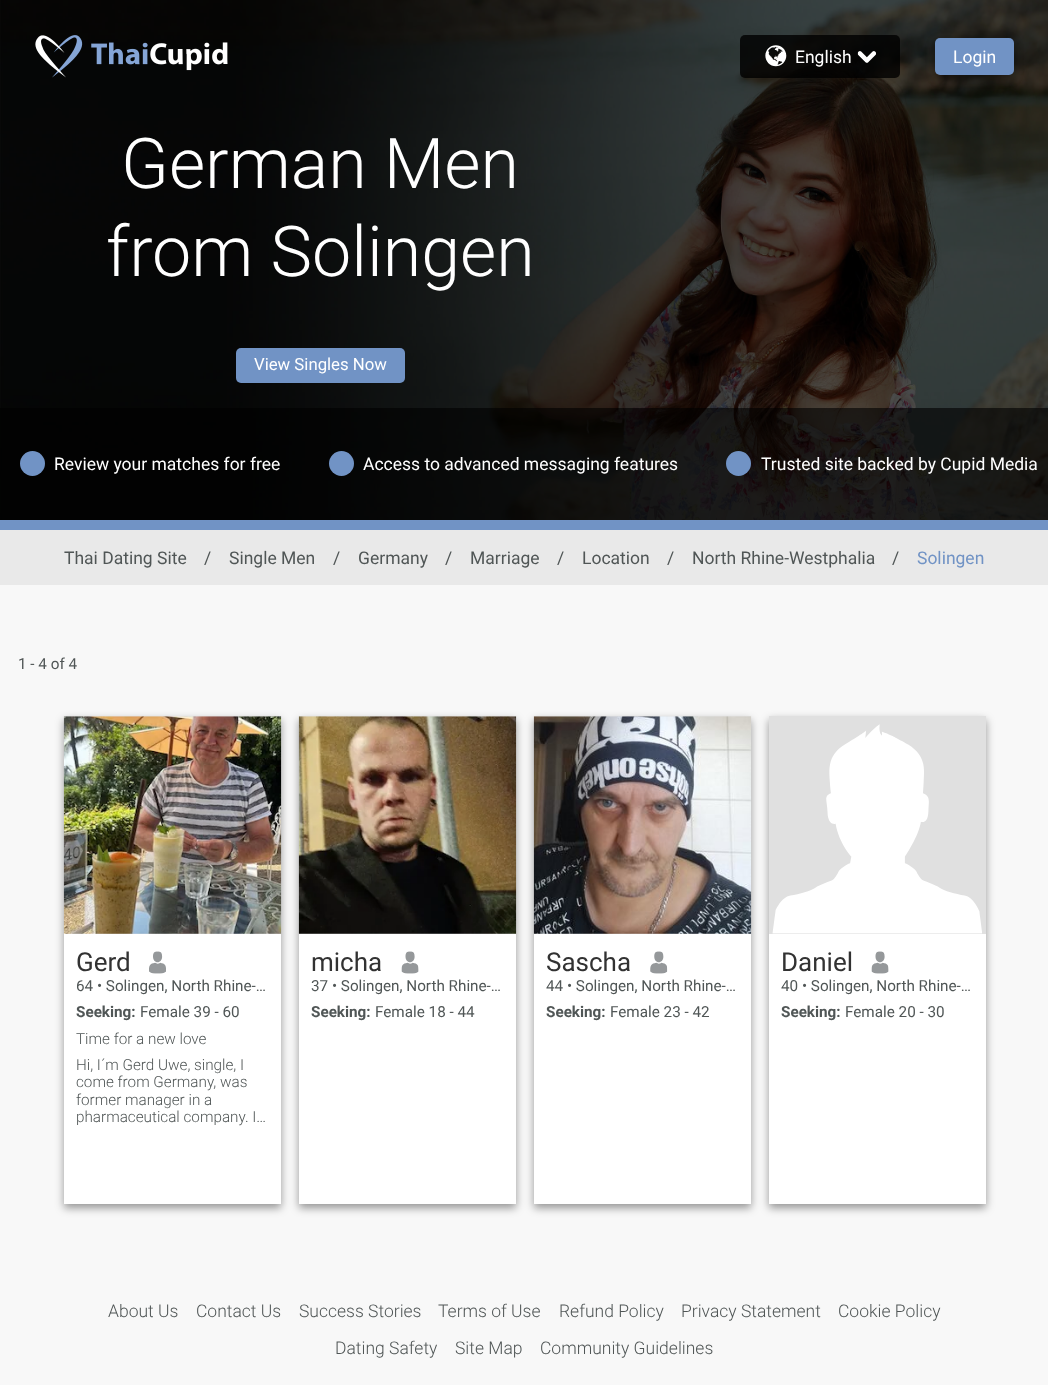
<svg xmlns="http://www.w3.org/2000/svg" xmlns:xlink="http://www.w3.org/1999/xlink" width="1048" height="1385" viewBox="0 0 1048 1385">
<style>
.cls-1{font:17.5px Roboto;fill:#ffffff}
.cls-2{font:300 70px Roboto;fill:#ffffff}
.cls-3{font:16.75px Roboto;fill:#ffffff}
.cls-4{font:17.5px Roboto;fill:#505656}
.cls-5{font:17.5px Roboto;fill:#7193c5}
.cls-6{font:15.25px Roboto;fill:#505656}
.cls-7{font:26px Roboto;fill:#323232}
.cls-8{font:bold 15.25px Roboto;fill:#505656}
.cls-9{font:300 15.25px Roboto;fill:#505656}
.cls-10{font:300 17.5px Roboto;fill:#505656}
</style>
<rect width="100%" height="100%" fill="#f8f8f8"/>
<image xlink:href="image4.png" x="0" y="0" width="1048" height="520"/>
<image xlink:href="image0.png" x="35" y="35" width="48" height="43"/>
<image xlink:href="image1.png" x="91" y="42" width="137" height="29"/>
<rect fill="#000000" fill-opacity="0.8" x="740" y="35" width="160" height="43" rx="5"/>
<image xlink:href="image2.png" x="765" y="45" width="22" height="22"/>
<image xlink:href="image3.png" x="857" y="51" width="19" height="12"/>
<rect fill="#000000" fill-opacity="0.4" filter="blur(4px)" x="935" y="41" width="79" height="38" rx="5"/>
<rect fill="#7193c5" x="935" y="38" width="79" height="37" rx="5"/>
<rect fill="#7193c5" x="236" y="348" width="169" height="35" rx="5"/>
<rect fill="#000000" fill-opacity="0.6" x="0" y="408" width="1048" height="112"/>
<circle fill="#7193c5" cx="32.5" cy="463.5" r="12.5"/>
<circle fill="#7193c5" cx="341.5" cy="463.5" r="12.5"/>
<circle fill="#7193c5" cx="738.5" cy="463.5" r="12.5"/>
<rect fill="#7193c5" x="0" y="520" width="1048" height="10"/>
<rect fill="#e9e9e9" x="0" y="530" width="1048" height="55"/>
<rect fill="#000000" fill-opacity="0.4" filter="blur(4px)" x="64" y="720" width="217" height="488"/>
<rect fill="#ffffff" x="64" y="934" width="217" height="270"/>
<rect fill="#e0e0e0" x="64" y="716" width="217" height="218"/>
<image xlink:href="image5.png" x="63" y="716" width="219" height="218"/>
<image xlink:href="image6.png" x="149" y="951" width="17" height="23"/>
<rect fill="#000000" fill-opacity="0.4" filter="blur(4px)" x="299" y="720" width="217" height="488"/>
<rect fill="#ffffff" x="299" y="934" width="217" height="270"/>
<rect fill="#e0e0e0" x="299" y="716" width="217" height="218"/>
<image xlink:href="image7.png" x="298" y="716" width="219" height="218"/>
<image xlink:href="image8.png" x="401" y="951" width="18" height="23"/>
<rect fill="#000000" fill-opacity="0.4" filter="blur(4px)" x="534" y="720" width="217" height="488"/>
<rect fill="#ffffff" x="534" y="934" width="217" height="270"/>
<rect fill="#e0e0e0" x="534" y="716" width="217" height="218"/>
<image xlink:href="image9.png" x="533" y="716" width="219" height="218"/>
<image xlink:href="image10.png" x="650" y="951" width="18" height="23"/>
<rect fill="#000000" fill-opacity="0.4" filter="blur(4px)" x="769" y="720" width="217" height="488"/>
<rect fill="#ffffff" x="769" y="934" width="217" height="270"/>
<rect fill="#e0e0e0" x="769" y="716" width="217" height="218"/>
<image xlink:href="image11.png" x="772" y="724" width="210" height="210"/>
<image xlink:href="image8.png" x="871" y="951" width="18" height="23"/>
<text class="cls-1" x="795" y="63">English</text>
<text class="cls-1" x="953" y="63">Login</text>
<text class="cls-2" x="121" y="188">German Men</text>
<text class="cls-2" x="106" y="276">from Solingen</text>
<text class="cls-3" x="254" y="370">View Singles Now</text>
<text class="cls-1" x="54" y="470">Review your matches for free</text>
<text class="cls-1" x="363" y="470">Access to advanced messaging features</text>
<text class="cls-1" x="761" y="470">Trusted site backed by Cupid Media</text>
<text class="cls-4" x="64" y="564">Thai Dating Site</text>
<text class="cls-4" x="204" y="564">/</text>
<text class="cls-4" x="229" y="564">Single Men</text>
<text class="cls-4" x="333" y="564">/</text>
<text class="cls-4" x="358" y="564">Germany</text>
<text class="cls-4" x="445" y="564">/</text>
<text class="cls-4" x="470" y="564">Marriage</text>
<text class="cls-4" x="557" y="564">/</text>
<text class="cls-4" x="582" y="564">Location</text>
<text class="cls-4" x="667" y="564">/</text>
<text class="cls-4" x="692" y="564">North Rhine-Westphalia</text>
<text class="cls-4" x="892" y="564">/</text>
<text class="cls-5" x="917" y="564">Solingen</text>
<text class="cls-6" x="18" y="669">1 - 4 of 4</text>
<text class="cls-7" x="76" y="971">Gerd</text>
<text class="cls-6" x="76" y="991">64 • Solingen, North Rhine-…</text>
<text class="cls-8" x="76" y="1017">Seeking:</text>
<text class="cls-6" x="140" y="1017">Female 39 - 60</text>
<text class="cls-9"><tspan x="76" y="1044">Time for a new love</tspan><tspan x="76" y="1070">Hi, I´m Gerd Uwe, single, I</tspan><tspan x="76" y="1087">come from Germany, was</tspan><tspan x="76" y="1105">former manager in a</tspan><tspan x="76" y="1122">pharmaceutical company. I…</tspan></text>
<text class="cls-7" x="311" y="971">micha</text>
<text class="cls-6" x="311" y="991">37 • Solingen, North Rhine-…</text>
<text class="cls-8" x="311" y="1017">Seeking:</text>
<text class="cls-6" x="375" y="1017">Female 18 - 44</text>
<text class="cls-7" x="546" y="971">Sascha</text>
<text class="cls-6" x="546" y="991">44 • Solingen, North Rhine-…</text>
<text class="cls-8" x="546" y="1017">Seeking:</text>
<text class="cls-6" x="610" y="1017">Female 23 - 42</text>
<text class="cls-7" x="781" y="971">Daniel</text>
<text class="cls-6" x="781" y="991">40 • Solingen, North Rhine-…</text>
<text class="cls-8" x="781" y="1017">Seeking:</text>
<text class="cls-6" x="845" y="1017">Female 20 - 30</text>
<text class="cls-10" x="108" y="1317">About Us</text>
<text class="cls-10" x="196" y="1317">Contact Us</text>
<text class="cls-10" x="299" y="1317">Success Stories</text>
<text class="cls-10" x="438" y="1317">Terms of Use</text>
<text class="cls-10" x="559" y="1317">Refund Policy</text>
<text class="cls-10" x="681" y="1317">Privacy Statement</text>
<text class="cls-10" x="838" y="1317">Cookie Policy</text>
<text class="cls-10" x="335" y="1354">Dating Safety</text>
<text class="cls-10" x="455" y="1354">Site Map</text>
<text class="cls-10" x="540" y="1354">Community Guidelines</text>
</svg>
